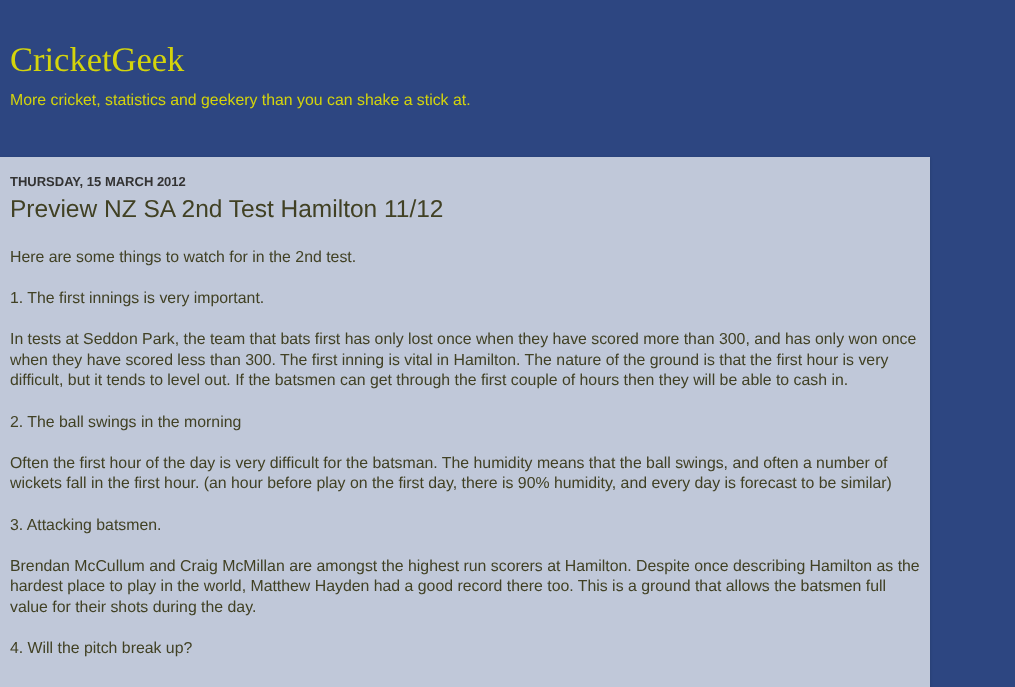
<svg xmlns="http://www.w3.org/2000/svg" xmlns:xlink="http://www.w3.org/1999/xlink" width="1015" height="687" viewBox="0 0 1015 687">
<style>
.cls-1{font:34.5px Liberation Serif;fill:#d4d40c}
.cls-2{font:15.85px Liberation Sans;fill:#d4d40c}
.cls-3{font:bold 13px Liberation Sans;fill:#333333}
.cls-4{font:24.5px Liberation Sans;fill:#414124}
.cls-5{font:15.85px Liberation Sans;fill:#414124}
</style>
<rect width="100%" height="100%" fill="#2d4681"/>
<rect fill="#000000" fill-opacity="0.15" filter="blur(1.5px)" x="0" y="158" width="930" height="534"/>
<rect fill="#c0c8d9" x="0" y="157" width="930" height="530"/>
<text class="cls-1" x="10" y="71">CricketGeek</text>
<text class="cls-2" x="10" y="105">More cricket, statistics and geekery than you can shake a stick at.</text>
<text class="cls-3" x="10" y="186">THURSDAY, 15 MARCH 2012</text>
<text class="cls-4" x="10" y="217">Preview NZ SA 2nd Test Hamilton 11/12</text>
<text class="cls-5" x="10" y="262">Here are some things to watch for in the 2nd test.</text>
<text class="cls-5" x="10" y="303">1. The first innings is very important.</text>
<text class="cls-5"><tspan x="10" y="344">In tests at Seddon Park, the team that bats first has only lost once when they have scored more than 300, and has only won once</tspan><tspan x="10" y="365">when they have scored less than 300. The first inning is vital in Hamilton. The nature of the ground is that the first hour is very</tspan><tspan x="10" y="385">difficult, but it tends to level out. If the batsmen can get through the first couple of hours then they will be able to cash in.</tspan></text>
<text class="cls-5" x="10" y="427">2. The ball swings in the morning</text>
<text class="cls-5"><tspan x="10" y="468">Often the first hour of the day is very difficult for the batsman. The humidity means that the ball swings, and often a number of</tspan><tspan x="10" y="488">wickets fall in the first hour. (an hour before play on the first day, there is 90% humidity, and every day is forecast to be similar)</tspan></text>
<text class="cls-5" x="10" y="530">3. Attacking batsmen.</text>
<text class="cls-5"><tspan x="10" y="571">Brendan McCullum and Craig McMillan are amongst the highest run scorers at Hamilton. Despite once describing Hamilton as the</tspan><tspan x="10" y="591">hardest place to play in the world, Matthew Hayden had a good record there too. This is a ground that allows the batsmen full</tspan><tspan x="10" y="612">value for their shots during the day.</tspan></text>
<text class="cls-5" x="10" y="653">4. Will the pitch break up?</text>
</svg>
